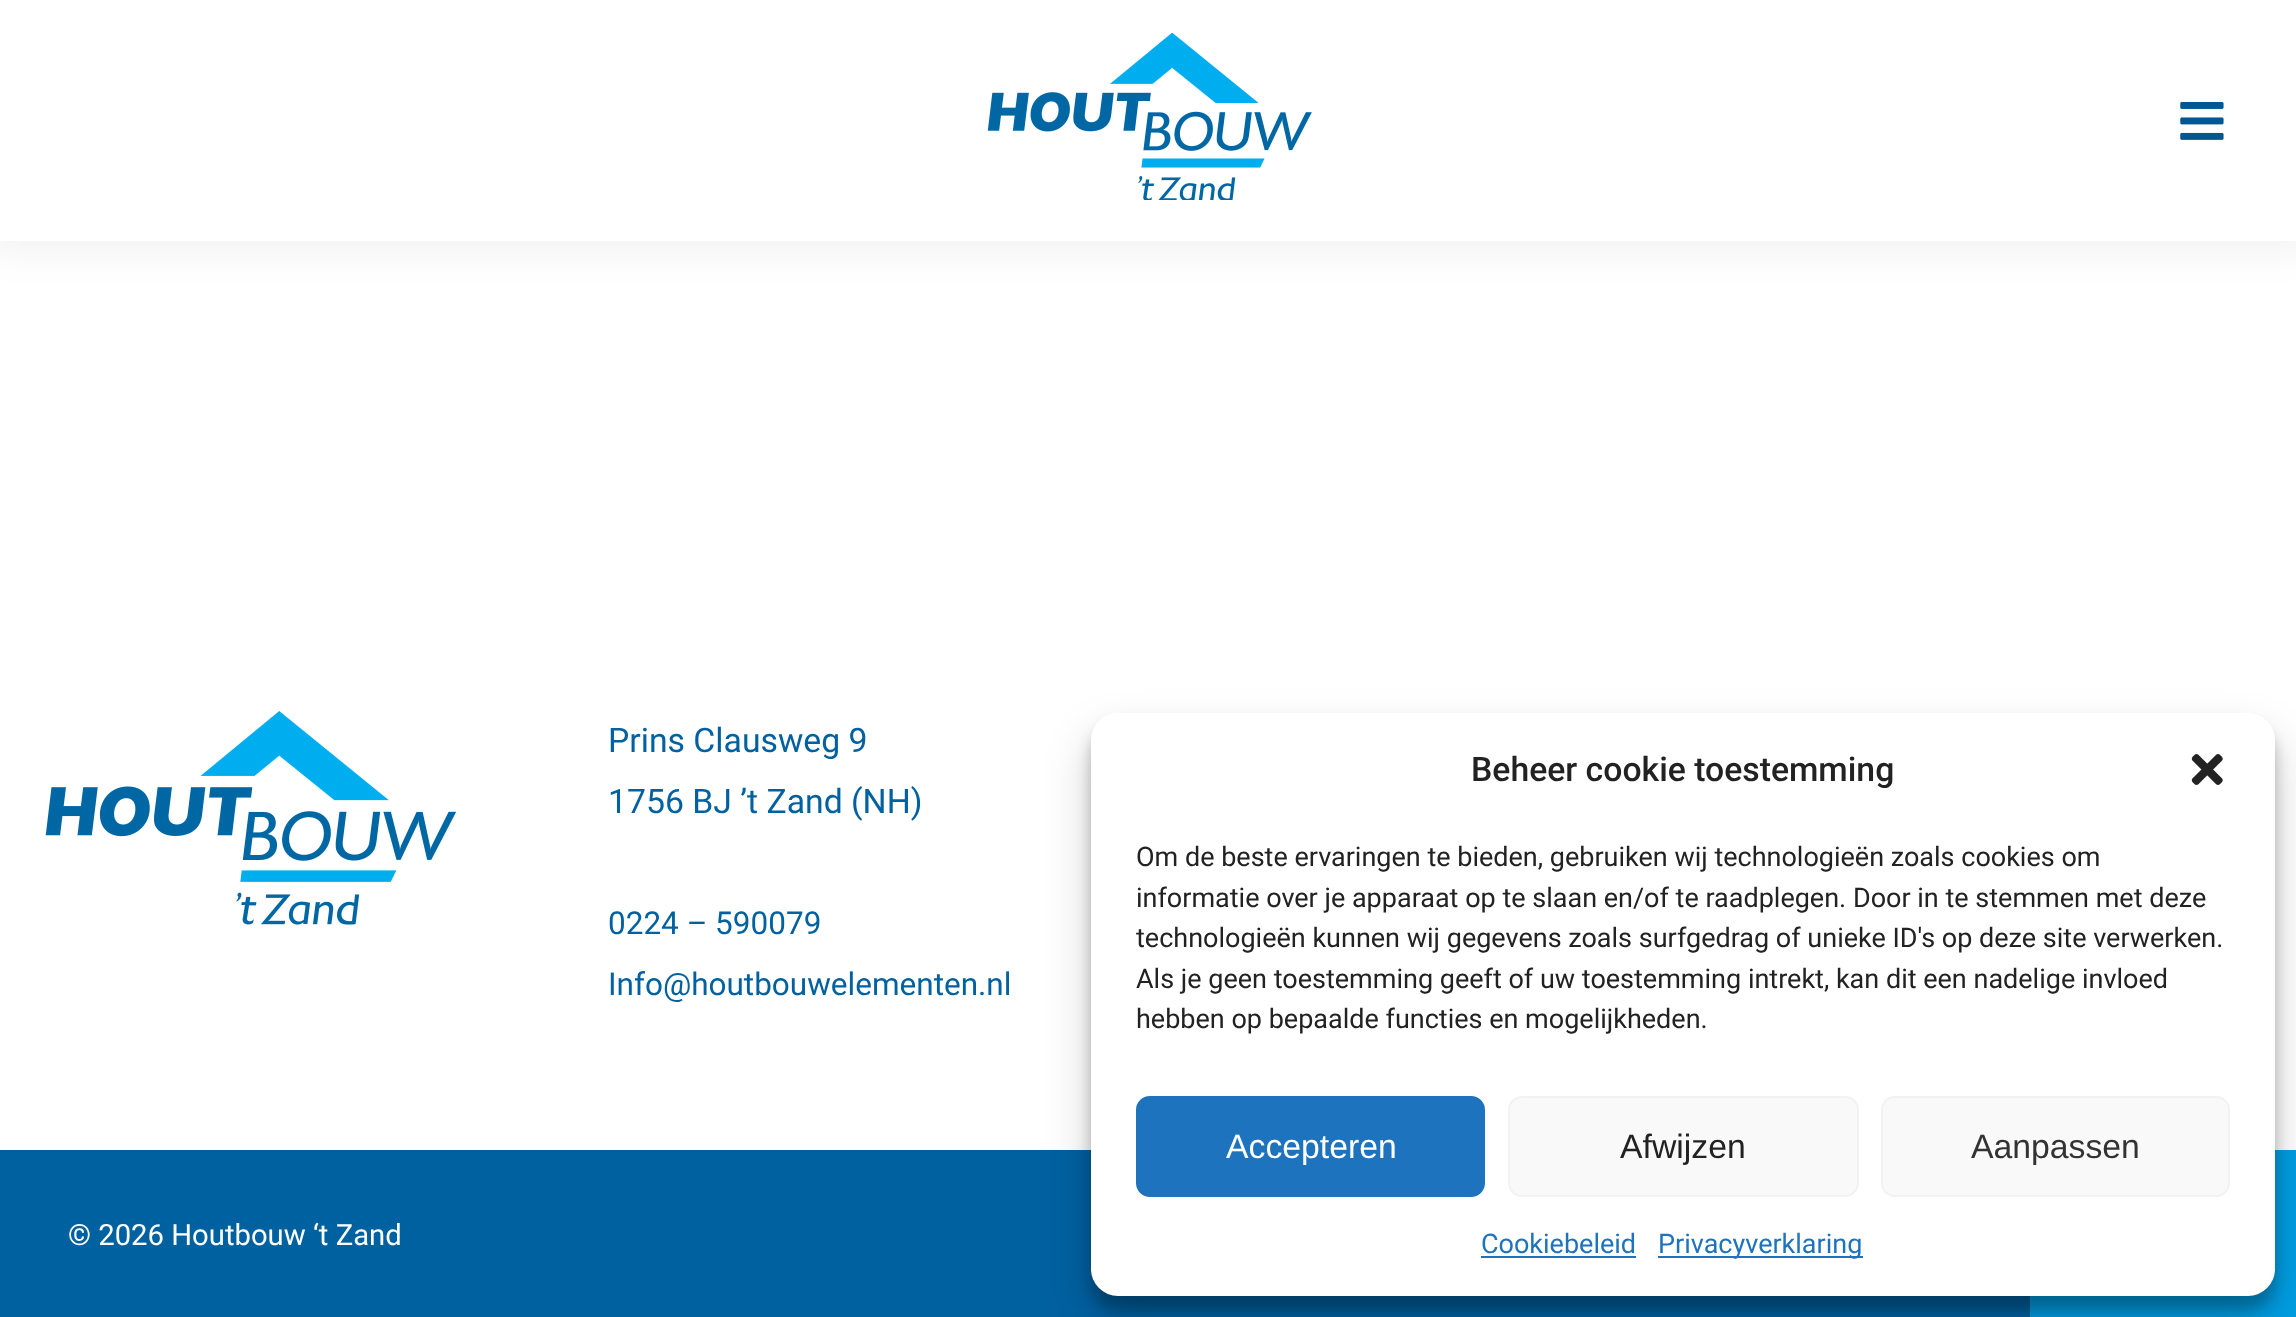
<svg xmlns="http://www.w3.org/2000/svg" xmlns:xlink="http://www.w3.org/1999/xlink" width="2296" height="1317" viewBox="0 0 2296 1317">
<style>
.cls-1{font:33.75px Roboto;fill:#0061a1}
.cls-2{font:31.5px Roboto;fill:#0061a1}
.cls-3{font:29.25px Roboto;fill:#ffffff}
.cls-4{font:500 33.75px Roboto;fill:#222222}
.cls-5{font:27px Roboto;fill:#222222}
.cls-6{font:33.75px Liberation Sans;fill:#ffffff}
.cls-7{font:33.75px Liberation Sans;fill:#222222}
.cls-8{font:33.75px Liberation Sans;fill:#333333}
.cls-9{font:27px Roboto;fill:#1e73be}
</style>
<rect width="100%" height="100%" fill="#ffffff"/>
<rect fill="#000000" fill-opacity="0.05" filter="blur(18px)" x="-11" y="-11" width="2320" height="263"/>
<rect fill="#ffffff" x="0" y="0" width="2296" height="241"/>
<image xlink:href="image0.png" x="987" y="32" width="325" height="168"/>
<image xlink:href="image1.png" x="2180" y="102" width="44" height="38"/>
<image xlink:href="image2.png" x="45" y="711" width="412" height="214"/>
<rect fill="#0061a1" x="0" y="1150" width="2030" height="167"/>
<rect fill="#009ee3" x="2030" y="1150" width="266" height="167"/>
<rect fill="#000000" fill-opacity="0.23" filter="blur(7px)" x="1091" y="727" width="1184" height="583" rx="27"/>
<rect fill="#000000" fill-opacity="0.19" filter="blur(22.5px)" x="1091" y="736" width="1184" height="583" rx="27"/>
<rect fill="#ffffff" x="1091" y="713" width="1184" height="583" rx="27"/>
<image xlink:href="image3.png" x="2191" y="754" width="32" height="31"/>
<rect fill="#1e73be" stroke="#1e73be" stroke-width="2" x="1137" y="1097" width="347" height="99" rx="13"/>
<rect fill="#f9f9f9" stroke="#f2f2f2" stroke-width="2" x="1509" y="1097" width="349" height="99" rx="13"/>
<rect fill="#f9f9f9" stroke="#f2f2f2" stroke-width="2" x="1882" y="1097" width="347" height="99" rx="13"/>
<rect fill="#1e73be" x="1481" y="1256" width="155" height="2"/>
<rect fill="#1e73be" x="1658" y="1256" width="205" height="2"/>
<text class="cls-1"><tspan x="608" y="752">Prins Clausweg 9</tspan><tspan x="608" y="813">1756 BJ ’t Zand (NH)</tspan></text>
<text class="cls-2"><tspan x="608" y="934">0224 – 590079</tspan><tspan x="608" y="995">Info@houtbouwelementen.nl</tspan></text>
<text class="cls-3" x="68" y="1245">© 2026 Houtbouw ‘t Zand</text>
<text class="cls-4" x="1471" y="781">Beheer cookie toestemming</text>
<text class="cls-5"><tspan x="1136" y="866">Om de beste ervaringen te bieden, gebruiken wij technologieën zoals cookies om</tspan><tspan x="1136" y="907">informatie over je apparaat op te slaan en/of te raadplegen. Door in te stemmen met deze</tspan><tspan x="1136" y="947">technologieën kunnen wij gegevens zoals surfgedrag of unieke ID's op deze site verwerken.</tspan><tspan x="1136" y="988">Als je geen toestemming geeft of uw toestemming intrekt, kan dit een nadelige invloed</tspan><tspan x="1136" y="1028">hebben op bepaalde functies en mogelijkheden.</tspan></text>
<text class="cls-6" x="1226" y="1158">Accepteren</text>
<text class="cls-7" x="1620" y="1158">Afwijzen</text>
<text class="cls-8" x="1971" y="1158">Aanpassen</text>
<text class="cls-9" x="1481" y="1253">Cookiebeleid</text>
<text class="cls-9" x="1658" y="1253">Privacyverklaring</text>
</svg>
